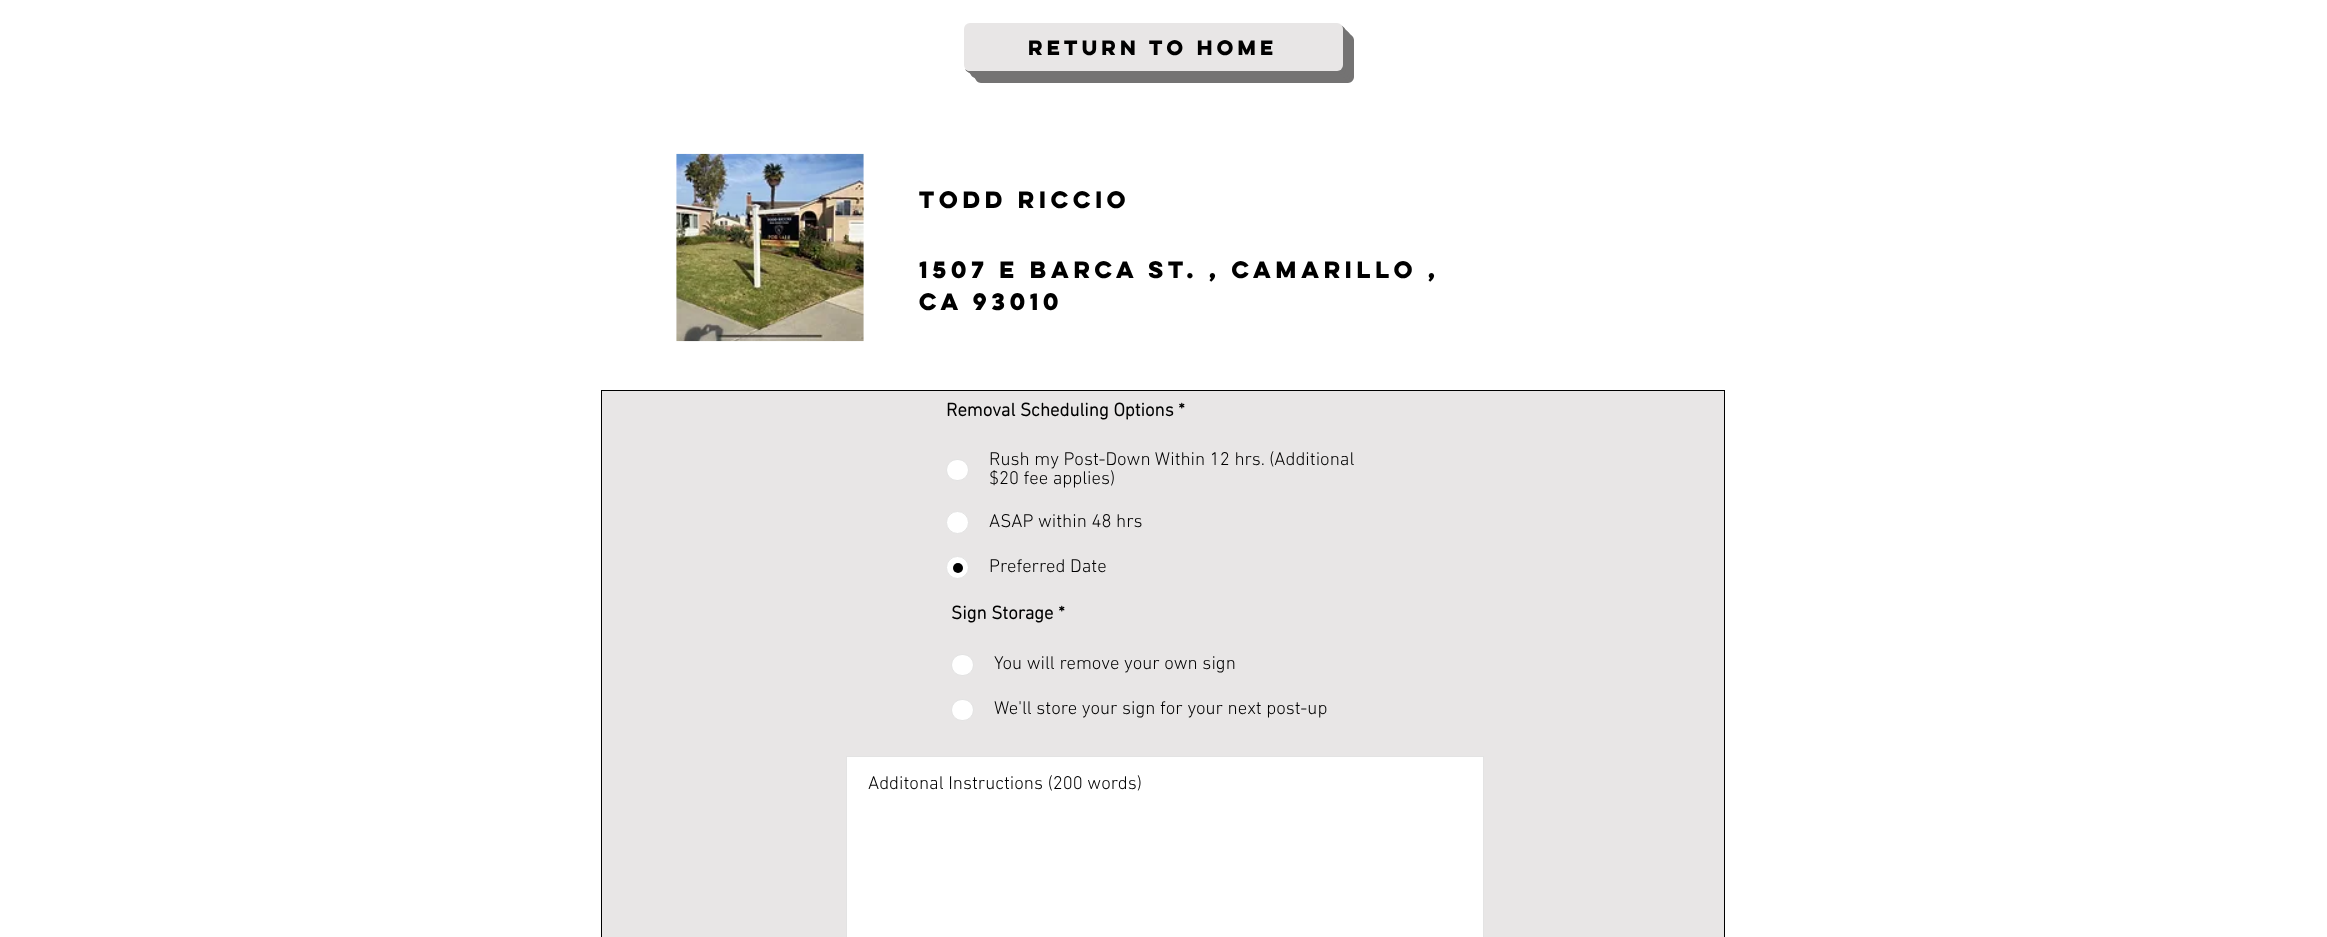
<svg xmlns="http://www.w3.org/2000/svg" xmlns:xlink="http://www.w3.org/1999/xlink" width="2327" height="937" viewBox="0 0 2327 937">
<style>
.cls-1{font:bold 18.75px 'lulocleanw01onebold';fill:#000000}
.cls-2{font:bold 21.25px 'lulocleanw01onebold';fill:#000000}
.cls-3{font:bold 18.75px 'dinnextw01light';fill:#000000}
.cls-4{font:300 18.75px 'dinnextw01light';fill:#000000}
</style>
<rect width="100%" height="100%" fill="#ffffff"/>
<path fill="#747373" d="M975 71V77C975 80 978 83 981 83H1348C1351 83 1354 80 1354 77V40C1354 37 1351 34 1348 34H1342V65C1342 68 1340 71 1336 71Z"/>
<path fill="#747373" d="M973 71V74C973 77 976 80 979 80H1345C1348 80 1351 77 1351 74V37C1351 34 1348 31 1345 31H1342V65C1342 68 1340 71 1336 71Z"/>
<path fill="#747373" d="M970 71V72C970 75 973 78 976 78H1343C1346 78 1349 75 1349 72V35C1349 32 1346 29 1343 29H1342V65C1342 68 1340 71 1336 71Z"/>
<path fill="#747373" d="M968 71C969 73 971 75 974 75H1340C1343 75 1346 72 1346 69V32C1346 29 1344 27 1342 26C1343 29 1342 33 1342 35V53C1342 58 1345 71 1336 71Z"/>
<path fill="#747373" d="M965 69C966 71 968 73 971 73H1338C1341 73 1344 70 1344 67V30C1344 28 1343 26 1341 25C1342 26 1342 27 1342 29V65C1342 68 1340 71 1336 71H970C968 71 967 70 965 69Z"/>
<rect fill="#e8e6e6" x="964" y="23" width="379" height="48" rx="6"/>
<image xlink:href="image0.png" x="676" y="153" width="188" height="189"/>
<rect fill="#e8e6e6" stroke="#000000" x="601.5" y="390.5" width="1123" height="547"/>
<rect fill="#ffffff" stroke="#e3e3e3" x="946.5" y="459.5" width="22" height="21" rx="10.5"/>
<circle fill="#ffffff" stroke="#e3e3e3" cx="957.5" cy="522.5" r="11"/>
<circle fill="#ffffff" stroke="#e3e3e3" cx="957.5" cy="567.5" r="11"/>
<circle fill="#000000" cx="958" cy="568" r="5"/>
<rect fill="#ffffff" stroke="#e3e3e3" x="951.5" y="654.5" width="22" height="21" rx="10.5"/>
<rect fill="#ffffff" stroke="#e3e3e3" x="951.5" y="699.5" width="22" height="21" rx="10.5"/>
<rect fill="#ffffff" stroke="#e3e3e3" x="846.5" y="756.5" width="637" height="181"/>
<text class="cls-1" x="1028" y="55">Return To Home</text>
<text class="cls-2" x="919" y="208">Todd Riccio</text>
<text class="cls-2"><tspan x="919" y="278">1507 E Barca ST. , Camarillo ,</tspan><tspan x="919" y="310">CA 93010</tspan></text>
<text class="cls-3" x="946" y="416">Removal Scheduling Options *</text>
<text class="cls-4"><tspan x="989" y="465">Rush my Post-Down Within 12 hrs. (Additional</tspan><tspan x="989" y="484">$20 fee applies)</tspan></text>
<text class="cls-4" x="989" y="527">ASAP within 48 hrs</text>
<text class="cls-4" x="989" y="572">Preferred Date</text>
<text class="cls-3" x="951" y="619">Sign Storage *</text>
<text class="cls-4" x="994" y="669">You will remove your own sign</text>
<text class="cls-4" x="994" y="714">We'll store your sign for your next post-up</text>
<text class="cls-4" x="868" y="789">Additonal Instructions (200 words)</text>
</svg>
